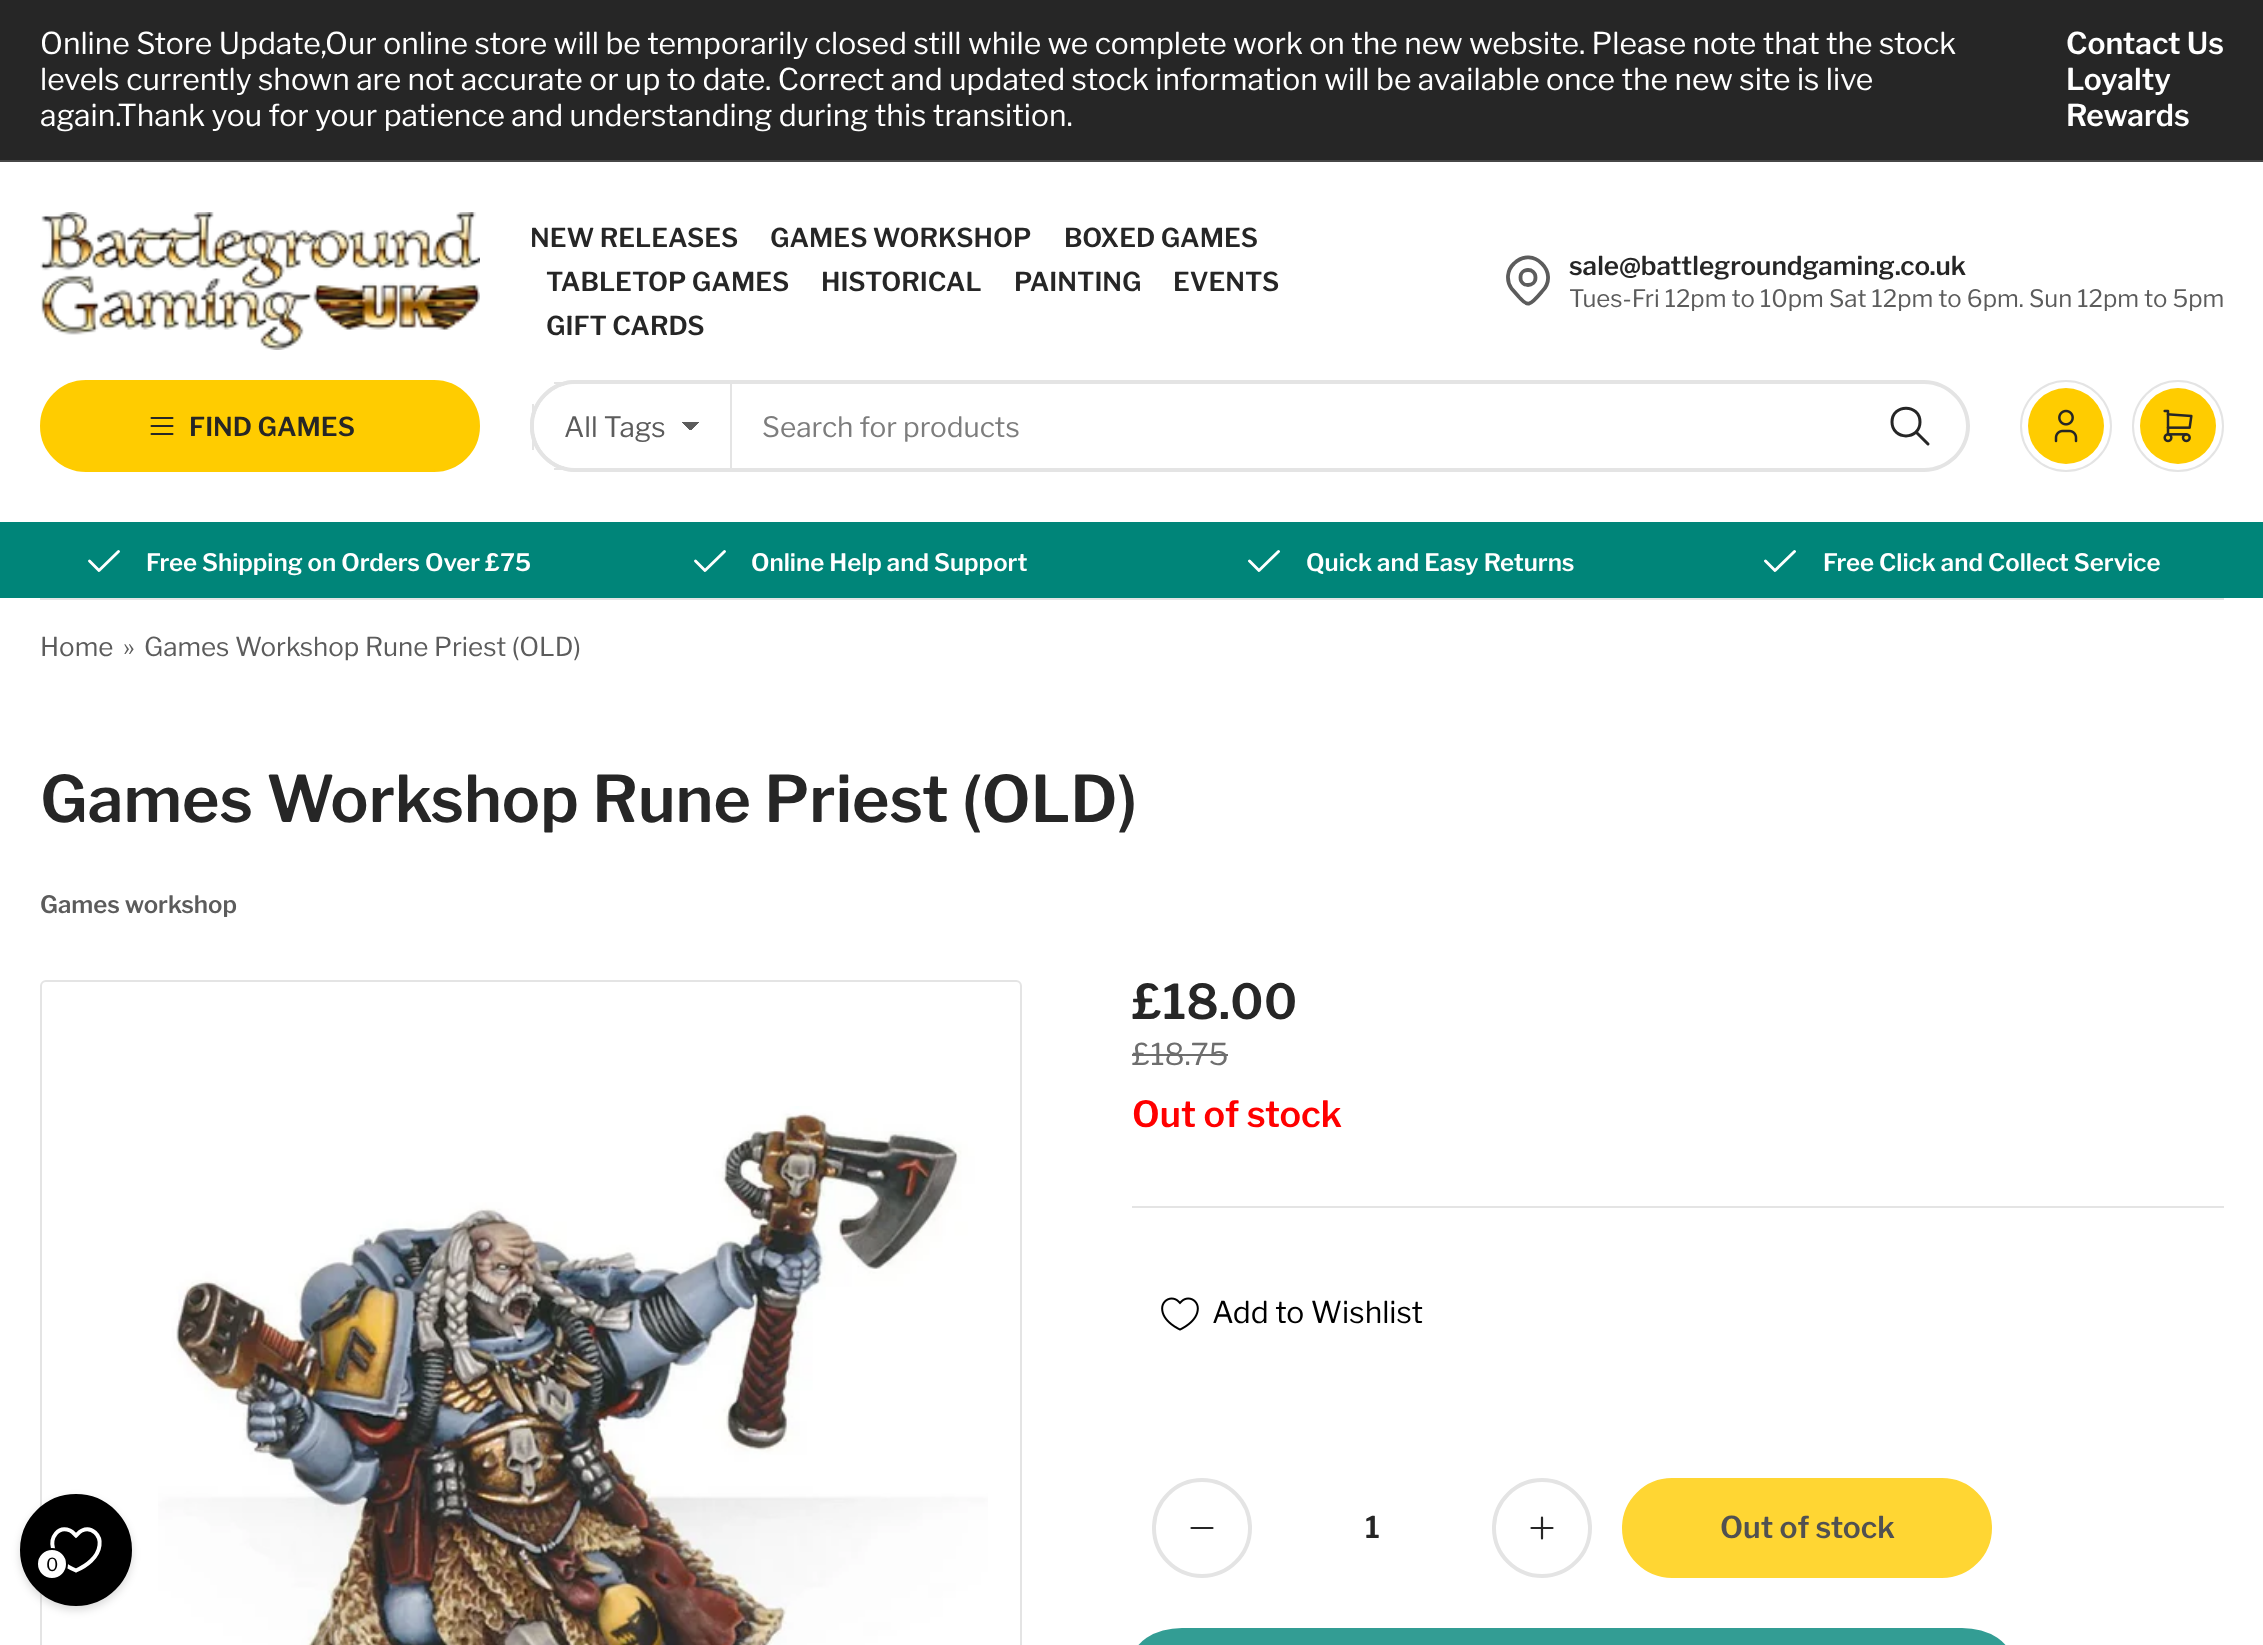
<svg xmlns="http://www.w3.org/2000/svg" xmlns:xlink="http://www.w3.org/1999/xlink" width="2263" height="1645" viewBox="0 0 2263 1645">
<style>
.cls-1{font:30px Libre Franklin;fill:#ffffff}
.cls-2{font:600 30px Libre Franklin;fill:#ffffff}
.cls-3{font:600 26px Libre Franklin;fill:#262626}
.cls-4{font:24px Libre Franklin;fill:#5c5c5c}
.cls-5{font:28px Libre Franklin;fill:#5c5c5c}
.cls-6{font:28px Libre Franklin;fill:#7d7d7d}
.cls-7{font:600 24px Libre Franklin;fill:#ffffff}
.cls-8{font:26px Libre Franklin;fill:#5c5c5c}
.cls-9{font:600 64px Libre Franklin;fill:#262626}
.cls-10{font:600 24px Libre Franklin;fill:#5c5c5c}
.cls-11{font:600 48px Libre Franklin;fill:#262626}
.cls-12{font:30px Libre Franklin;fill:#6e6e6e}
.cls-13{font:600 36px Libre Franklin;fill:#ff0000}
.cls-14{font:30px Libre Franklin;fill:#000000}
.cls-15{font:600 30px Libre Franklin;fill:#262626}
.cls-16{font:600 30px Libre Franklin;fill:#515151}
.cls-17{font:18px Libre Franklin;fill:#000000}
</style>
<defs>
<linearGradient id="g1" gradientUnits="userSpaceOnUse" x1="690" y1="421" x2="700" y2="431"><stop offset="0.5" stop-color="#5c5c5c"/><stop offset="0.5" stop-color="#ffffff"/></linearGradient>
<linearGradient id="g2" gradientUnits="userSpaceOnUse" x1="680" y1="431" x2="690" y2="421"><stop offset="0.5" stop-color="#ffffff"/><stop offset="0.5" stop-color="#5c5c5c"/></linearGradient>
</defs>
<rect width="100%" height="100%" fill="#ffffff"/>
<rect fill="#262626" x="0" y="0" width="2263" height="160"/>
<rect fill="#474747" x="0" y="160" width="2263" height="2"/>
<image xlink:href="image0.png" x="40" y="212" width="440" height="138"/>
<path fill="none" stroke="#5c5c5c" stroke-width="3.8" stroke-linecap="round" stroke-linejoin="round" d="M1520.5 277.5C1520.5 287.5 1535.5 287.5 1535.5 277.5C1535.5 267.5 1520.5 267.5 1520.5 277.5M1542 291.5C1539.5 294.5 1532.5 303 1529 303.5C1525 304.5 1521.5 299.5 1519 297L1511.5 288.5C1506 280.5 1507 270 1514 263.5C1532.5 245 1560.5 273 1542 291.5Z"/>
<rect fill="#ffcc00" stroke="#ffcc00" stroke-width="2" x="41" y="381" width="438" height="90" rx="45"/>
<path fill="none" stroke="#262626" stroke-width="2" stroke-linecap="round" stroke-linejoin="round" d="M151.5 418H172.5M151.5 426H172.5M151.5 434H172.5"/>
<rect fill="none" stroke="#e4e4e4" stroke-width="4" x="532" y="382" width="198" height="88" rx="44"/>
<path fill="#ffffff" d="M576 384H730V468H576C553 468 534 449 534 426C534 403 553 384 576 384Z"/>
<rect fill="url(#g1)" x="690" y="422" width="9" height="8"/>
<rect fill="url(#g2)" x="682" y="422" width="8" height="8"/>
<path fill="none" stroke="#e4e4e4" stroke-width="2" d="M576 381H731V471H576C551 471 531 451 531 426C531 401 551 381 576 381Z"/>
<rect fill="#e4e4e4" x="554" y="382" width="178" height="2"/>
<rect fill="#e4e4e4" x="554" y="468" width="178" height="2"/>
<rect fill="#e4e4e4" x="532" y="404" width="2" height="46"/>
<path fill="#e4e4e4" fill-rule="evenodd" d="M732 380H1924C1949 380 1970 401 1970 426C1970 451 1949 472 1924 472H732ZM732 384H1924C1947 384 1966 403 1966 426C1966 449 1947 468 1924 468H732Z"/>
<path fill="none" stroke="#262626" stroke-width="3" stroke-linecap="round" stroke-linejoin="round" d="M1892 422C1892 440.5 1920 440.5 1920 422C1920 403.5 1892 403.5 1892 422M1928 444L1916 432"/>
<circle fill="none" stroke="#e4e4e4" stroke-width="2" cx="2066" cy="426" r="45"/>
<circle fill="#ffcc00" cx="2066" cy="426" r="38"/>
<image xlink:href="image1.png" x="2054" y="409" width="24" height="34"/>
<circle fill="none" stroke="#e4e4e4" stroke-width="2" cx="2178" cy="426" r="45"/>
<circle fill="#ffcc00" cx="2178" cy="426" r="38"/>
<image xlink:href="image2.png" x="2163" y="409" width="30" height="34"/>
<rect fill="#008579" x="0" y="522" width="2263" height="76"/>
<path fill="none" stroke="#ffffff" stroke-width="2.9" stroke-linecap="round" stroke-linejoin="round" d="M89.5 561L99 570.5L118.5 551.5"/>
<path fill="none" stroke="#ffffff" stroke-width="2.9" stroke-linecap="round" stroke-linejoin="round" d="M695.5 561L705 570.5L724.5 551.5"/>
<path fill="none" stroke="#ffffff" stroke-width="2.9" stroke-linecap="round" stroke-linejoin="round" d="M1249.5 561L1259 570.5L1278.5 551.5"/>
<path fill="none" stroke="#ffffff" stroke-width="2.9" stroke-linecap="round" stroke-linejoin="round" d="M1765.5 561L1775 570.5L1794.5 551.5"/>
<rect fill="#e4e4e4" x="40" y="598" width="2184" height="2"/>
<rect fill="none" stroke="#e4e4e4" stroke-width="2" x="41" y="981" width="980" height="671" rx="5"/>
<image xlink:href="image3.png" x="158" y="1106" width="830" height="539"/>
<rect fill="#6e6e6e" x="1132" y="1054" width="96" height="2"/>
<rect fill="#e4e4e4" x="1132" y="1206" width="1092" height="2"/>
<image xlink:href="image4.png" x="1161" y="1297" width="38" height="34"/>
<circle fill="none" stroke="#e4e4e4" stroke-width="4" cx="1202" cy="1528" r="48"/>
<path fill="none" stroke="#262626" stroke-width="2.2" stroke-linecap="round" stroke-linejoin="round" d="M1191.5 1528H1212.5"/>
<circle fill="none" stroke="#e4e4e4" stroke-width="4" cx="1542" cy="1528" r="48"/>
<path fill="none" stroke="#262626" stroke-width="2.2" stroke-linecap="round" stroke-linejoin="round" d="M1542 1517.5V1538.5M1531.5 1528H1552.5"/>
<rect fill="#ffd633" stroke="#ffd633" stroke-width="2" x="1623" y="1479" width="368" height="98" rx="49"/>
<rect fill="#339d94" x="1132" y="1628" width="880" height="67" rx="50"/>
<rect fill="#000000" fill-opacity="0.15" filter="blur(4px)" x="20" y="1498" width="112" height="112" rx="56"/>
<circle fill="#000000" stroke="#000000" stroke-width="4" cx="76" cy="1550" r="54"/>
<path fill="none" stroke="#ffffff" stroke-width="4" d="M76 1570.5C66.5 1566.5 56 1559 53 1548.5C50 1537.5 58 1525.5 70 1530.5C72.5 1531.5 74 1533.5 76 1535.5C78 1533.5 79.5 1531.5 82 1530.5C92 1526 101 1535.5 99.5 1545.5C98 1557.5 86.5 1566 76 1570.5Z"/>
<circle fill="#ffffff" stroke="#000000" stroke-width="2" cx="52" cy="1564" r="15"/>
<text class="cls-1"><tspan x="40" y="54">Online Store Update,Our online store will be temporarily closed still while we complete work on the new website. Please note that the stock</tspan><tspan x="40" y="90">levels currently shown are not accurate or up to date. Correct and updated stock information will be available once the new site is live</tspan><tspan x="40" y="126">again.Thank you for your patience and understanding during this transition.</tspan></text>
<text class="cls-2"><tspan x="2066" y="54">Contact Us</tspan><tspan x="2066" y="90">Loyalty</tspan><tspan x="2066" y="126">Rewards</tspan></text>
<text class="cls-3" x="530" y="247">NEW RELEASES</text>
<text class="cls-3" x="770" y="247">GAMES WORKSHOP</text>
<text class="cls-3" x="1064" y="247">BOXED GAMES</text>
<text class="cls-3" x="546" y="291">TABLETOP GAMES</text>
<text class="cls-3" x="821" y="291">HISTORICAL</text>
<text class="cls-3" x="1014" y="291">PAINTING</text>
<text class="cls-3" x="1173" y="291">EVENTS</text>
<text class="cls-3" x="546" y="335">GIFT CARDS</text>
<text class="cls-3" x="1569" y="275">sale@battlegroundgaming.co.uk</text>
<text class="cls-4" x="1569" y="307">Tues-Fri 12pm to 10pm Sat 12pm to 6pm. Sun 12pm to 5pm</text>
<text class="cls-3" x="189" y="436">FIND GAMES</text>
<text class="cls-5" x="564" y="437">All Tags</text>
<text class="cls-6" x="762" y="437">Search for products</text>
<text class="cls-7" x="146" y="571">Free Shipping on Orders Over £75</text>
<text class="cls-7" x="751" y="571">Online Help and Support</text>
<text class="cls-7" x="1306" y="571">Quick and Easy Returns</text>
<text class="cls-7" x="1823" y="571">Free Click and Collect Service</text>
<text class="cls-8" x="40" y="656">Home</text>
<text class="cls-8" x="123" y="656">»</text>
<text class="cls-8" x="144" y="656">Games Workshop Rune Priest (OLD)</text>
<text class="cls-9" x="40" y="822">Games Workshop Rune Priest (OLD)</text>
<text class="cls-10" x="40" y="913">Games workshop</text>
<text class="cls-11" x="1132" y="1019">£18.00</text>
<text class="cls-12" x="1132" y="1065">£18.75</text>
<text class="cls-13" x="1132" y="1127">Out of stock</text>
<text class="cls-14" x="1212" y="1323">Add to Wishlist</text>
<text class="cls-15" x="1365" y="1538">1</text>
<text class="cls-16" x="1720" y="1538">Out of stock</text>
<text class="cls-17" x="46" y="1571">0</text>
</svg>
